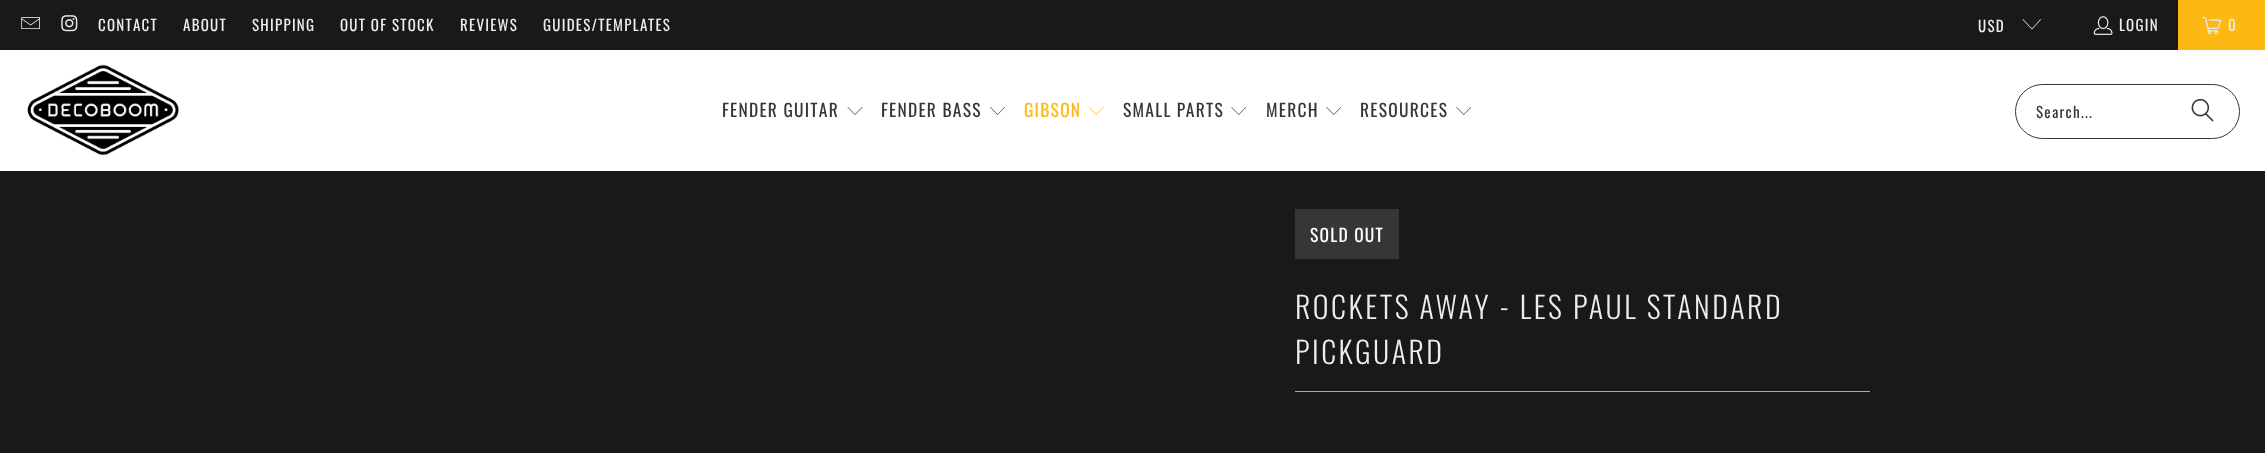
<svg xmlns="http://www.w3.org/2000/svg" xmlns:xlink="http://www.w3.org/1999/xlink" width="2265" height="453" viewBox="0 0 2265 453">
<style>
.cls-1{font:15px Oswald;letter-spacing:1.25px;fill:#ededed}
.cls-2{font:17.5px Oswald;letter-spacing:1.25px;fill:#363636}
.cls-3{font:17.5px Oswald;letter-spacing:1.25px;fill:#fdb813}
.cls-4{font:15px Oswald;letter-spacing:1.25px;fill:#363636}
.cls-5{font:17.5px Oswald;letter-spacing:1.25px;fill:#ffffff}
.cls-6{font:300 30px Oswald;letter-spacing:2.5px;fill:#ededed}
</style>
<rect width="100%" height="100%" fill="#191919"/>
<image xlink:href="image0.png" x="21" y="17" width="19" height="12"/>
<image xlink:href="image1.png" x="61" y="15" width="17" height="17"/>
<path fill="#ededed" d="M2032 29.5L2022.5 19.5L2023 19L2032 28.5L2040.5 19L2041 19.5Z"/>
<image xlink:href="image2.png" x="2093" y="16" width="20" height="19"/>
<rect fill="#fdb813" x="2178" y="0" width="87" height="50"/>
<image xlink:href="image3.png" x="2202" y="16" width="20" height="19"/>
<rect fill="#ffffff" x="0" y="50" width="2265" height="121"/>
<image xlink:href="image4.png" x="27" y="64" width="152" height="92"/>
<image xlink:href="image5.png" x="847" y="107" width="16" height="8"/>
<image xlink:href="image6.png" x="990" y="107" width="15" height="8"/>
<image xlink:href="image7.png" x="1088" y="107" width="16" height="8"/>
<image xlink:href="image8.png" x="1231" y="107" width="16" height="8"/>
<image xlink:href="image8.png" x="1326" y="107" width="16" height="8"/>
<image xlink:href="image8.png" x="1456" y="107" width="16" height="8"/>
<rect fill="none" stroke="#363636" x="2015.5" y="84.5" width="224" height="54" rx="27"/>
<image xlink:href="image9.png" x="2191" y="98" width="23" height="24"/>
<rect fill="#363636" x="1295" y="209" width="104" height="50"/>
<rect fill="#aaaaaa" x="1295" y="391" width="575" height="1"/>
<text class="cls-1" x="98" y="31">CONTACT</text>
<text class="cls-1" x="183" y="31">ABOUT</text>
<text class="cls-1" x="252" y="31">SHIPPING</text>
<text class="cls-1" x="340" y="31">OUT OF STOCK</text>
<text class="cls-1" x="460" y="31">REVIEWS</text>
<text class="cls-1" x="543" y="31">GUIDES/TEMPLATES</text>
<text class="cls-1" x="1978" y="32">USD</text>
<text class="cls-1" x="2119" y="31">LOGIN</text>
<text class="cls-1" x="2228" y="31">0</text>
<text class="cls-2" x="722" y="117">FENDER GUITAR</text>
<text class="cls-2" x="881" y="117">FENDER BASS</text>
<text class="cls-3" x="1024" y="117">GIBSON</text>
<text class="cls-2" x="1123" y="117">SMALL PARTS</text>
<text class="cls-2" x="1266" y="117">MERCH</text>
<text class="cls-2" x="1360" y="117">RESOURCES</text>
<text class="cls-4" x="2036" y="118">Search...</text>
<text class="cls-5" x="1310" y="242">SOLD OUT</text>
<text class="cls-6"><tspan x="1295" y="319">ROCKETS AWAY - LES PAUL STANDARD</tspan><tspan x="1295" y="364">PICKGUARD</tspan></text>
</svg>
